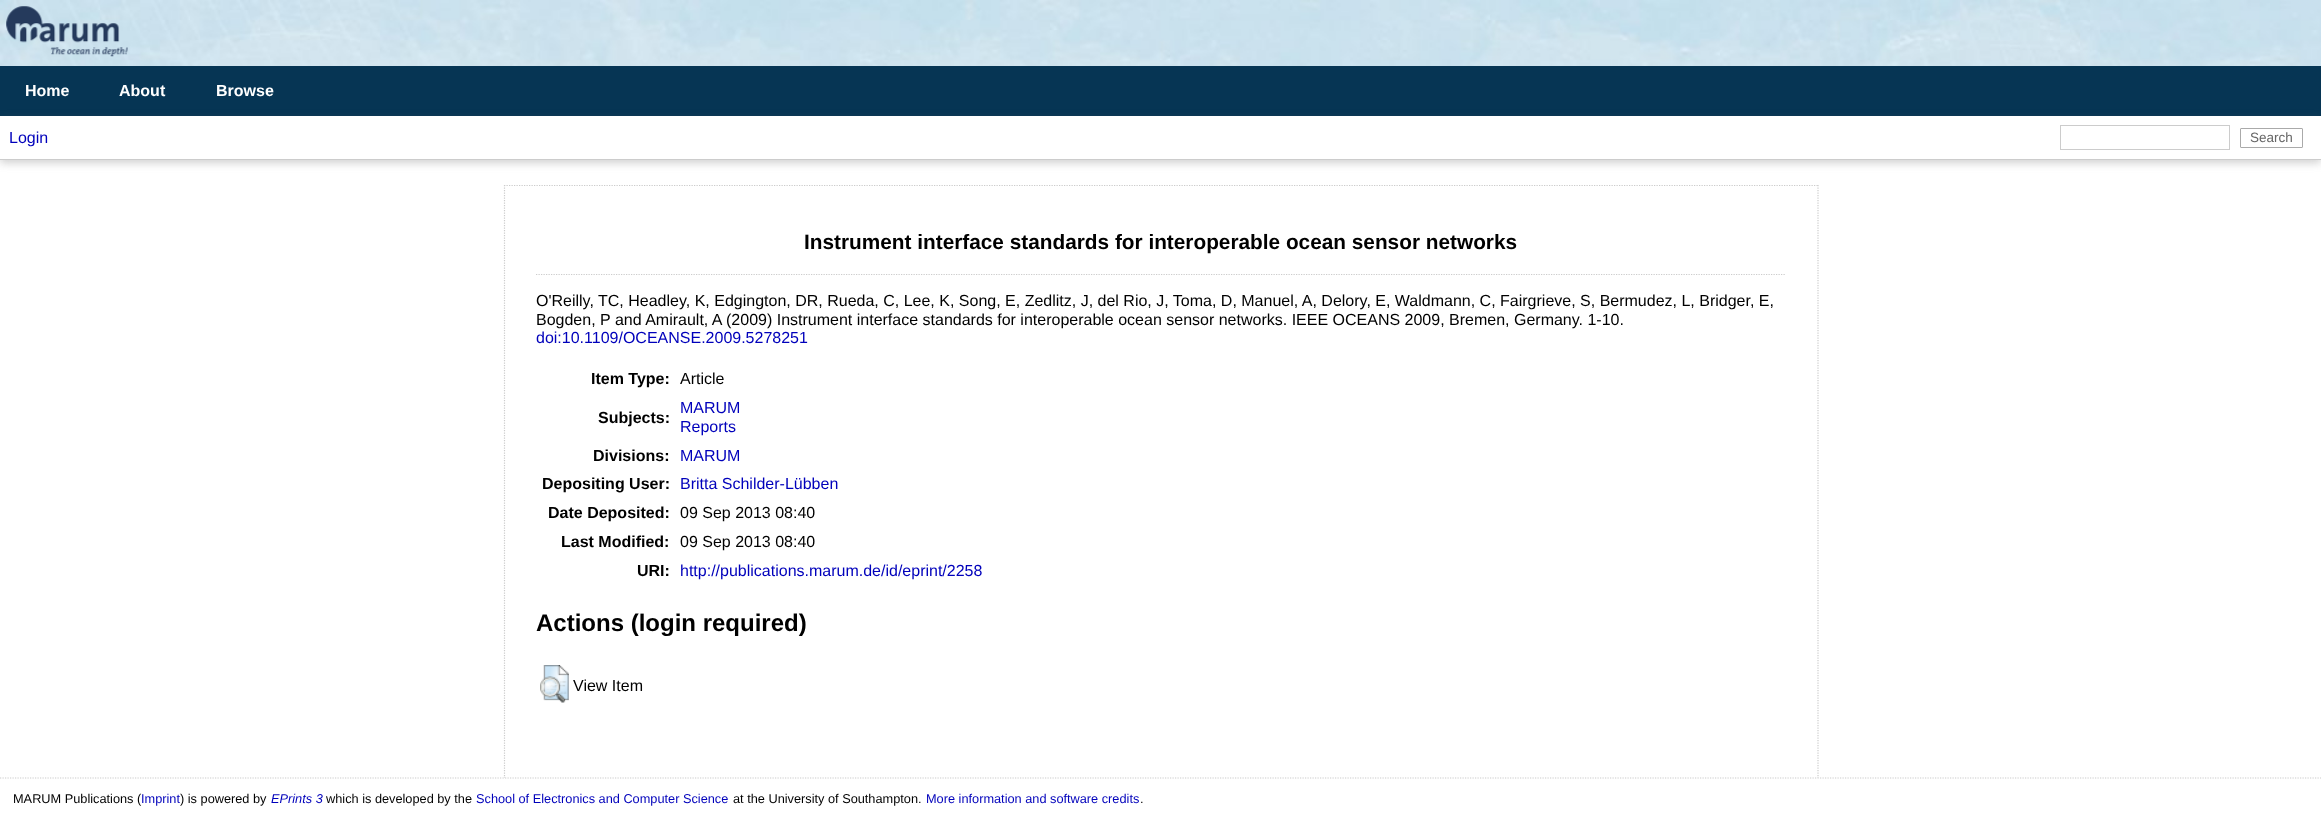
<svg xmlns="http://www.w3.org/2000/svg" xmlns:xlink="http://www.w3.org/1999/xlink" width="2321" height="833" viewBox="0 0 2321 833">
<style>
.cls-1{font:bold 16px Liberation Sans;fill:#ffffff}
.cls-2{font:16px Liberation Sans;fill:#0000bb}
.cls-3{font:13.5px Liberation Sans;fill:#666666}
.cls-4{font:bold 20.8px Liberation Sans;fill:#000000}
.cls-5{font:16px Liberation Sans;fill:#000000}
.cls-6{font:bold 16px Liberation Sans;fill:#000000}
.cls-7{font:bold 24px Liberation Sans;fill:#000000}
.cls-8{font:12.75px Liberation Sans;fill:#000000}
.cls-9{font:12.75px Liberation Sans;fill:#0000bb}
.cls-10{font:italic 12.75px Liberation Sans;fill:#0000bb}
</style>
<rect width="100%" height="100%" fill="#ffffff"/>
<image xlink:href="image0.png" x="0" y="0" width="2321" height="66"/>
<image xlink:href="image1.png" x="6" y="6" width="122" height="51"/>
<rect fill="#063554" x="0" y="66" width="2321" height="50"/>
<rect fill="#646464" fill-opacity="0.3" filter="blur(4px)" x="0" y="119" width="2321" height="44"/>
<rect fill="#ffffff" x="0" y="116" width="2321" height="43"/>
<rect fill="#cccccc" x="0" y="159" width="2321" height="1"/>
<rect fill="none" stroke="#cccccc" x="2060.5" y="125.5" width="169" height="24"/>
<rect fill="none" stroke="#aaaaaa" x="2240.5" y="128.5" width="62" height="19" rx="0.5"/>
<path fill="none" stroke="#cccccc" stroke-width="1.2" stroke-dasharray="1.25 1.25" d="M504 185.5H1819"/>
<path fill="none" stroke="#cccccc" stroke-width="1.2" stroke-dasharray="1.25 1.25" d="M1818 185V805"/>
<path fill="none" stroke="#cccccc" stroke-width="1.2" stroke-dasharray="1.25 1.25" d="M504.5 185V805"/>
<path fill="none" stroke="#cccccc" stroke-width="1.2" stroke-dasharray="1.25 1.25" d="M536 274.5H1786"/>
<image xlink:href="image2.png" x="540" y="665" width="29" height="38"/>
<rect fill="#ffffff" x="503" y="778" width="1316" height="26"/>
<path fill="none" stroke="#cccccc" stroke-width="1.2" stroke-dasharray="1.25 1.25" d="M0 778H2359"/>
<text class="cls-1" x="25" y="96">Home</text>
<text class="cls-1" x="119" y="96">About</text>
<text class="cls-1" x="216" y="96">Browse</text>
<text class="cls-2" x="9" y="143">Login</text>
<text class="cls-3" x="2250" y="142">Search</text>
<text class="cls-4" x="804" y="249">Instrument interface standards for interoperable ocean sensor networks</text>
<text class="cls-5"><tspan x="536" y="306">O'Reilly, TC, Headley, K, Edgington, DR, Rueda, C, Lee, K, Song, E, Zedlitz, J, del Rio, J, Toma, D, Manuel, A, Delory, E, Waldmann, C, Fairgrieve, S, Bermudez, L, Bridger, E,</tspan><tspan x="536" y="325">Bogden, P and Amirault, A</tspan></text>
<text class="cls-5" x="726" y="325">(2009) Instrument interface standards for interoperable ocean sensor networks. IEEE OCEANS 2009, Bremen, Germany. 1-10.</text>
<text class="cls-2" x="536" y="343">doi:10.1109/OCEANSE.2009.5278251</text>
<text class="cls-6" x="591" y="384">Item Type:</text>
<text class="cls-5" x="680" y="384">Article</text>
<text class="cls-6" x="598" y="423">Subjects:</text>
<text class="cls-2"><tspan x="680" y="413">MARUM</tspan><tspan x="680" y="432">Reports</tspan></text>
<text class="cls-6" x="593" y="461">Divisions:</text>
<text class="cls-2" x="680" y="461">MARUM</text>
<text class="cls-6" x="542" y="489">Depositing User:</text>
<text class="cls-2" x="680" y="489">Britta Schilder-Lübben</text>
<text class="cls-6" x="548" y="518">Date Deposited:</text>
<text class="cls-5" x="680" y="518">09 Sep 2013 08:40</text>
<text class="cls-6" x="561" y="547">Last Modified:</text>
<text class="cls-5" x="680" y="547">09 Sep 2013 08:40</text>
<text class="cls-6" x="637" y="576">URI:</text>
<text class="cls-2" x="680" y="576">http://publications.marum.de/id/eprint/2258</text>
<text class="cls-7" x="536" y="631">Actions (login required)</text>
<text class="cls-5" x="573" y="691">View Item</text>
<text class="cls-8" x="13" y="803">MARUM Publications (</text>
<text class="cls-9" x="141" y="803">Imprint</text>
<text class="cls-8" x="180" y="803">) is powered by</text>
<text class="cls-10" x="271" y="803">EPrints 3</text>
<text class="cls-8" x="326" y="803">which is developed by the</text>
<text class="cls-9" x="476" y="803">School of Electronics and Computer Science</text>
<text class="cls-8" x="733" y="803">at the University of Southampton.</text>
<text class="cls-9" x="926" y="803">More information and software credits</text>
<text class="cls-8" x="1140" y="803">.</text>
</svg>
